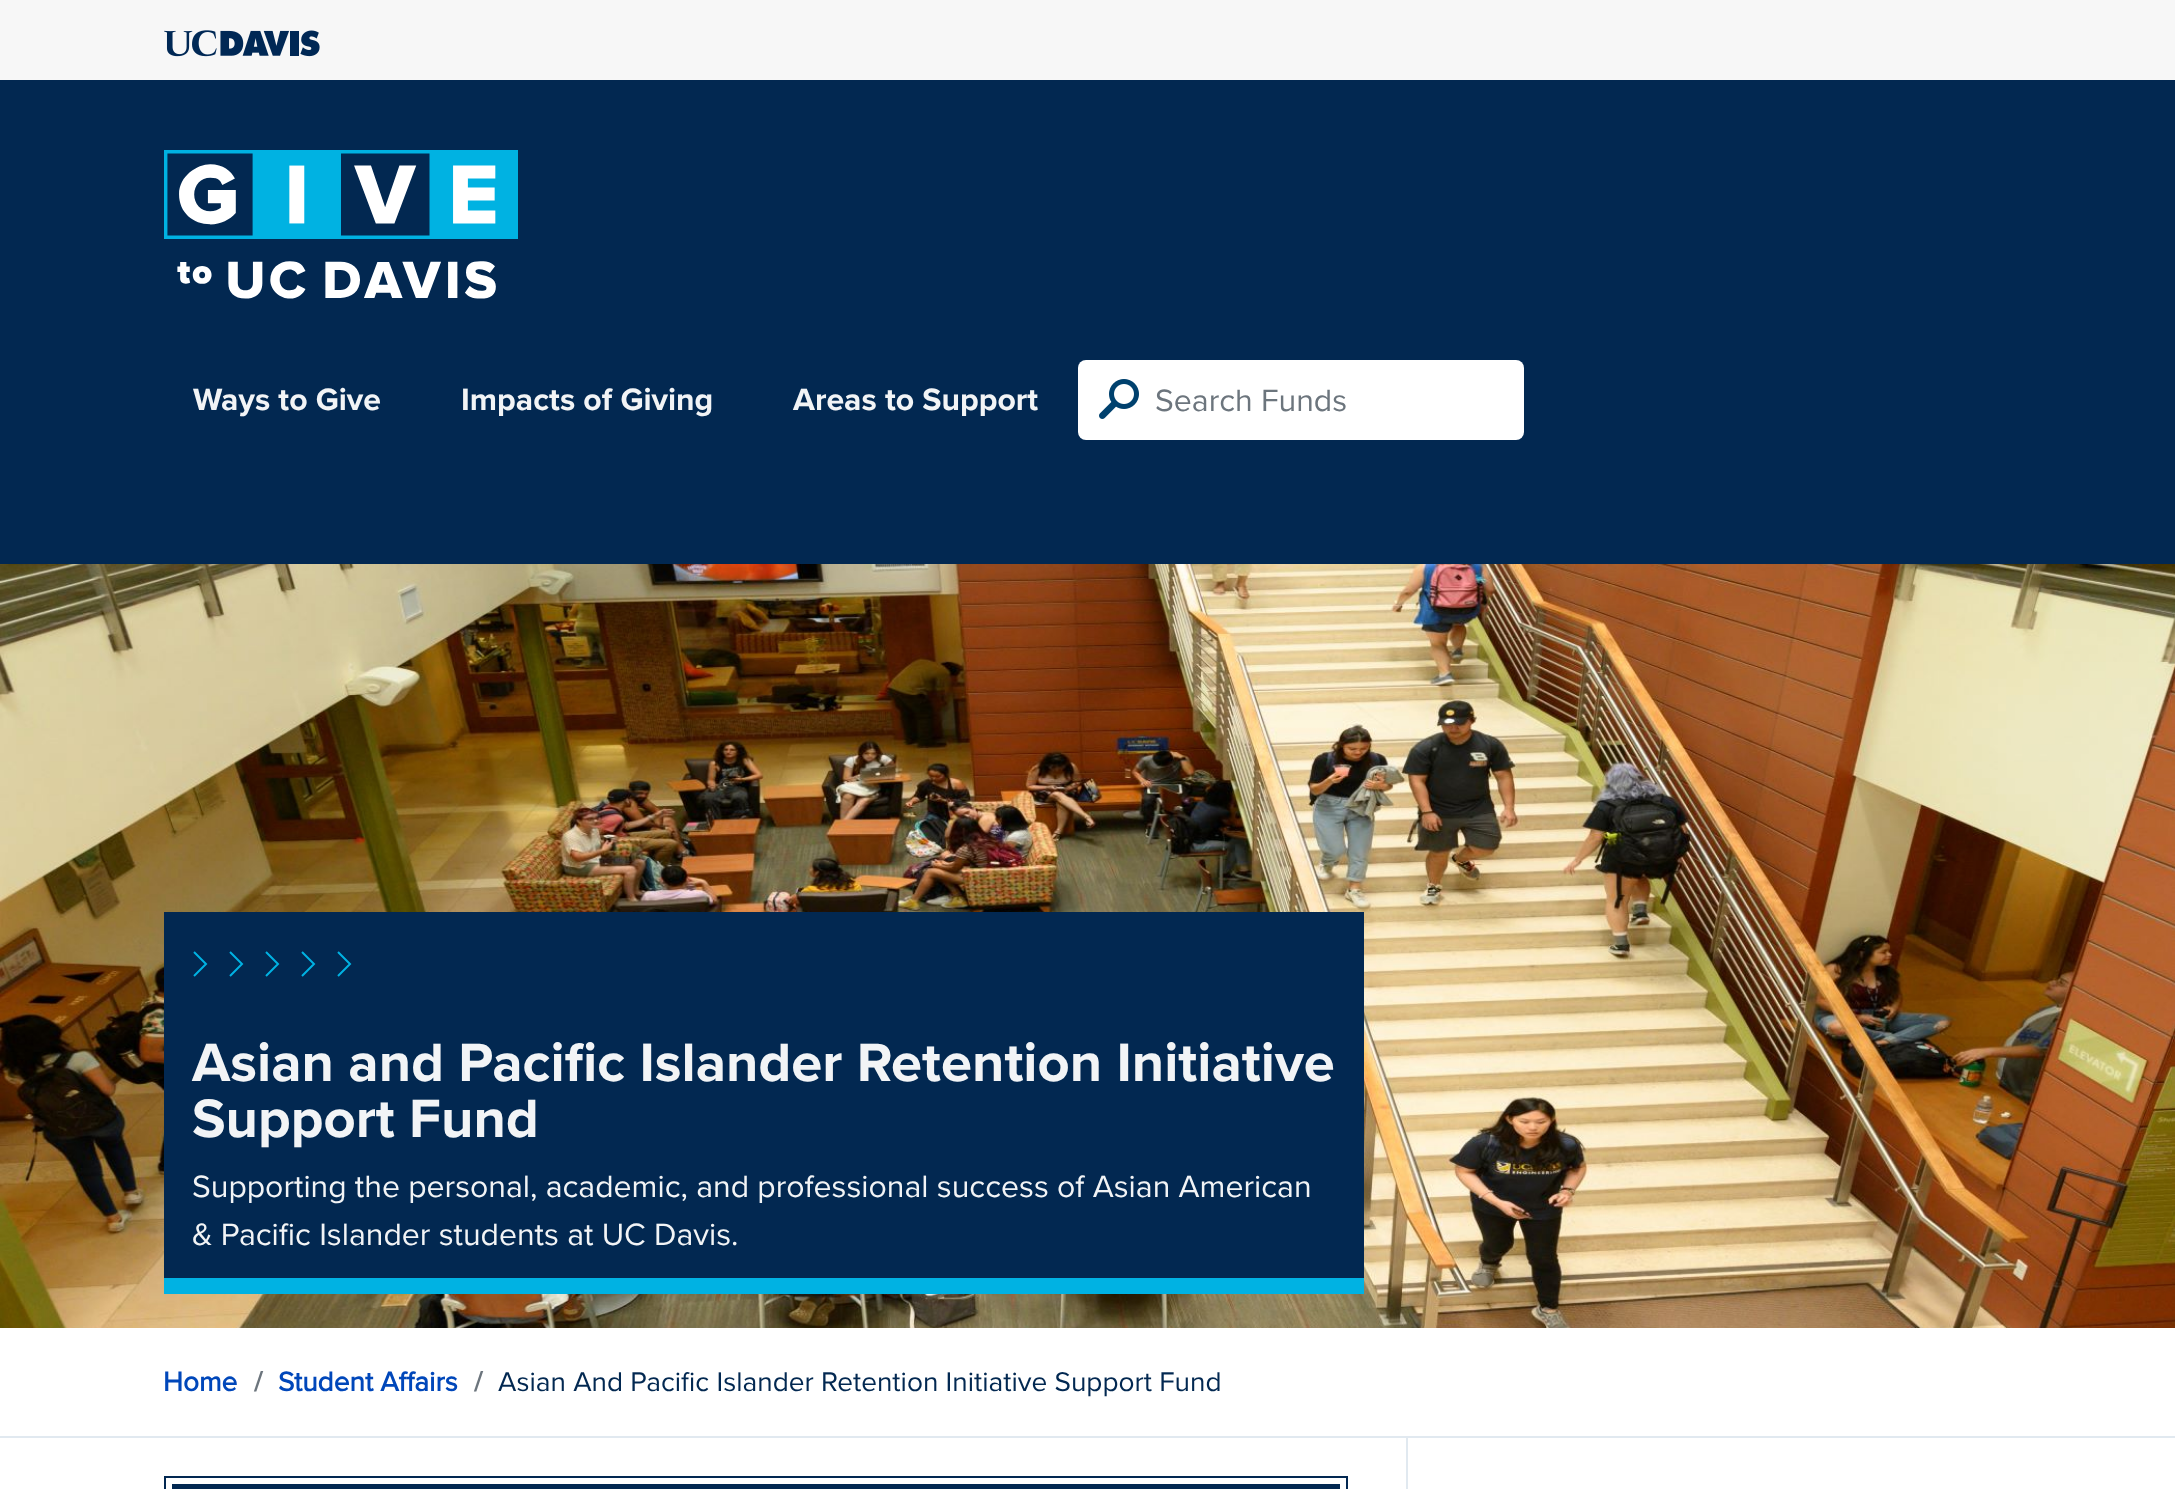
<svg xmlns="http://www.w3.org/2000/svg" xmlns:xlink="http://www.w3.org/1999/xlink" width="2175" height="1489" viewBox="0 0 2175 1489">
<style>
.cls-1{font:bold 32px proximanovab;fill:#f2f4f6}
.cls-2{font:32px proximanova;fill:#6c757d}
.cls-3{font:bold 56px proximanovab;fill:#f2f4f6}
.cls-4{font:32px proximanova;fill:#f2f4f6}
.cls-5{font:bold 28px proximanova;fill:#0047ba}
.cls-6{font:bold 28px proximanova;fill:#6c757d}
.cls-7{font:28px proximanova;fill:#022851}
</style>
<rect width="100%" height="100%" fill="#ffffff"/>
<rect fill="#f7f7f7" x="0" y="0" width="2175" height="80"/>
<image xlink:href="image0.png" x="164" y="30" width="156" height="27"/>
<rect fill="#022851" x="0" y="80" width="2175" height="484"/>
<image xlink:href="image1.png" x="164" y="150" width="354" height="149"/>
<rect fill="#ffffff" x="1078" y="360" width="446" height="80" rx="8"/>
<image xlink:href="image2.png" x="1099" y="379" width="40" height="40"/>
<image xlink:href="image3.png" x="0" y="564" width="2175" height="764"/>
<rect fill="#022851" x="164" y="912" width="1200" height="366"/>
<rect fill="#00b2e3" x="164" y="1278" width="1200" height="16"/>
<path fill="none" stroke="#00b2e3" stroke-width="2" d="M230 976L242 964L230 952M194 976L206 964L194 952"/>
<path fill="none" stroke="#00b2e3" stroke-width="2" d="M266 976L278 964L266 952"/>
<path fill="none" stroke="#00b2e3" stroke-width="2" d="M338 976L350 964L338 952M302 976L314 964L302 952"/>
<rect fill="#e1e9f0" x="0" y="1436" width="2175" height="2"/>
<rect fill="none" stroke="#022851" stroke-width="2" x="165" y="1477" width="1182" height="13"/>
<rect fill="#022851" x="172" y="1484" width="1168" height="5"/>
<rect fill="#e1e9f0" x="1406" y="1438" width="2" height="51"/>
<text class="cls-1" x="193" y="410">Ways to Give</text>
<text class="cls-1" x="461" y="410">Impacts of Giving</text>
<text class="cls-1" x="793" y="410">Areas to Support</text>
<text class="cls-2" x="1155" y="411">Search Funds</text>
<text class="cls-3"><tspan x="192" y="1081">Asian and Pacific Islander Retention Initiative</tspan><tspan x="192" y="1137">Support Fund</tspan></text>
<text class="cls-4"><tspan x="192" y="1197">Supporting the personal, academic, and professional success of Asian American</tspan><tspan x="192" y="1245">&amp; Pacific Islander students at UC Davis.</tspan></text>
<text class="cls-5" x="163" y="1391">Home</text>
<text class="cls-6" x="254" y="1391">/</text>
<text class="cls-5" x="278" y="1391">Student Affairs</text>
<text class="cls-6" x="474" y="1391">/</text>
<text class="cls-7" x="498" y="1391">Asian And Pacific Islander Retention Initiative Support Fund</text>
</svg>
